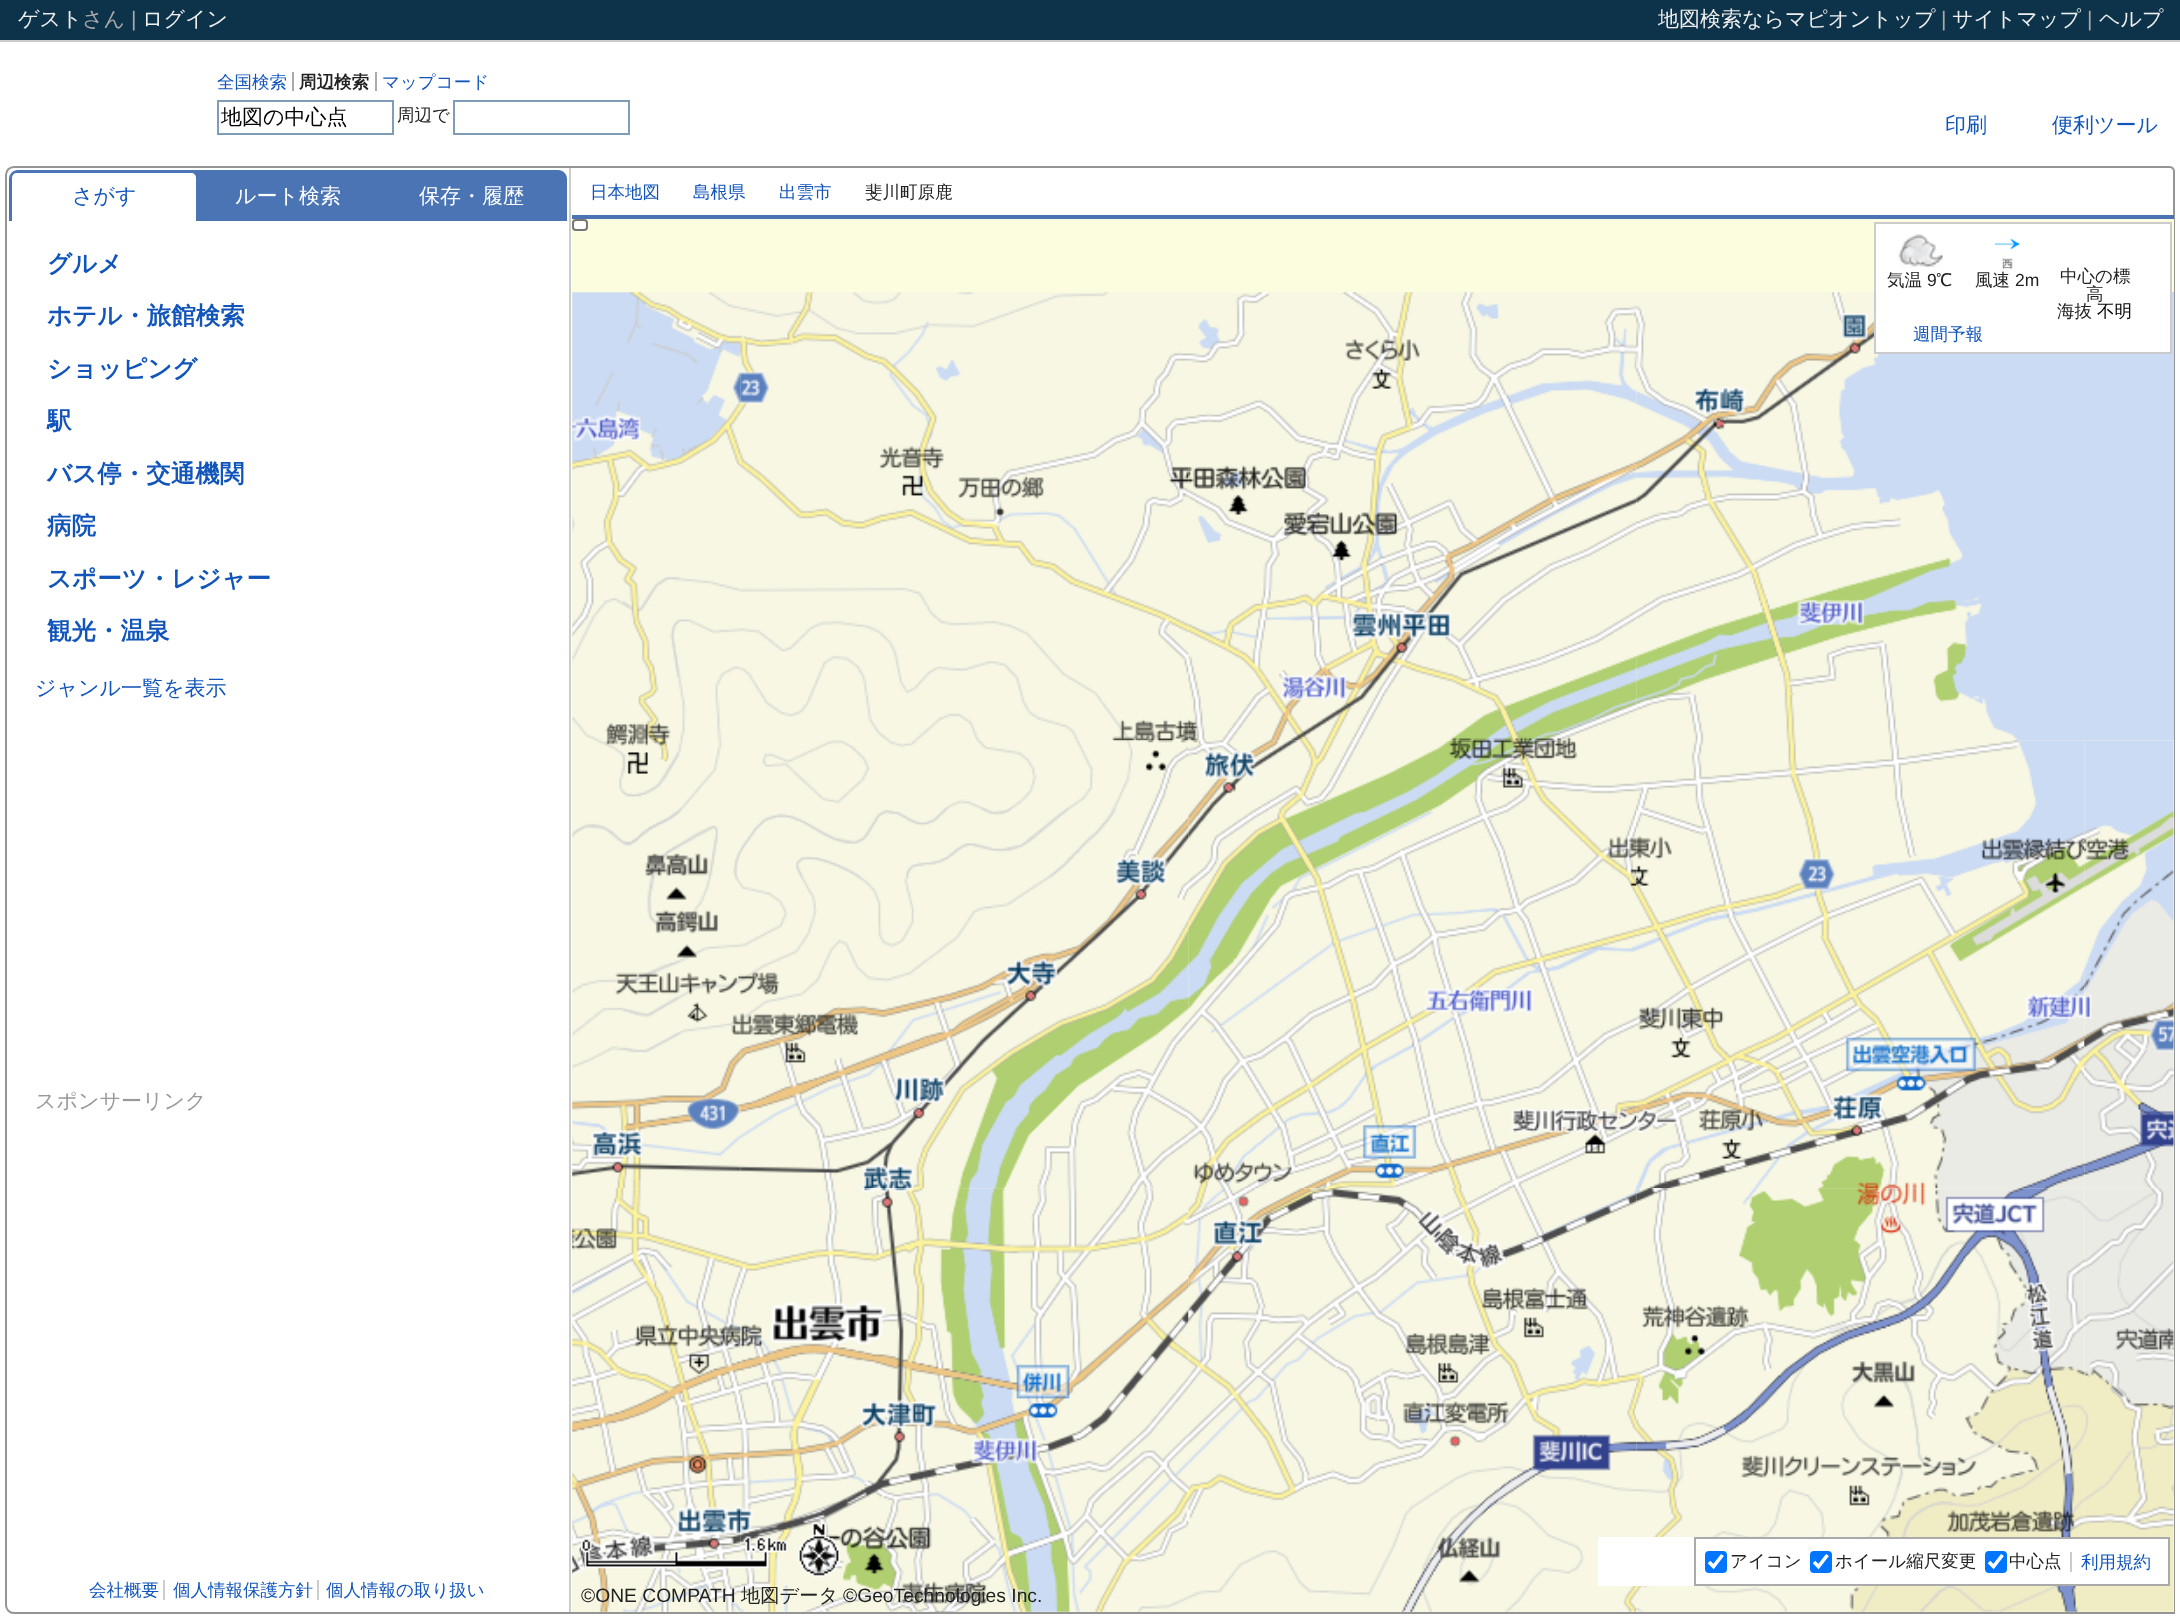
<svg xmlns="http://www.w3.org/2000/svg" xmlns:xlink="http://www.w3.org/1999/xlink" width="2180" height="1621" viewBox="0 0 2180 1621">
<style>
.cls-1{font:500 21px WenQuanYi Zen Hei;fill:#eeeeee}
.cls-2{font:500 21px WenQuanYi Zen Hei;fill:#aaaaaa}
.cls-3{font:21px Liberation Sans;fill:#aaaaaa}
.cls-4{font:500 17.5px WenQuanYi Zen Hei;fill:#1155bb}
.cls-5{font:bold 17.5px WenQuanYi Zen Hei;fill:#222222}
.cls-6{font:500 21px WenQuanYi Zen Hei;fill:#000000}
.cls-7{font:500 17.5px WenQuanYi Zen Hei;fill:#222222}
.cls-8{font:500 21px WenQuanYi Zen Hei;fill:#1155bb}
.cls-9{font:500 21px WenQuanYi Zen Hei;fill:#ffffff}
.cls-10{font:bold 24.5px WenQuanYi Zen Hei;fill:#1155bb}
.cls-11{font:500 21px WenQuanYi Zen Hei;fill:#999999}
.cls-12{font:17.5px Liberation Sans;fill:#222222}
.cls-13{font:500 17.5px WenQuanYi Zen Hei;fill:#000000}
.cls-14{font:19.25px Liberation Sans;fill:#222222}
.cls-15{font:500 19.25px WenQuanYi Zen Hei;fill:#222222}
.cls-16{font:19.25px Liberation Sans;fill:#e6e6e6}
</style>
<defs>
<clipPath id="clip1"><rect x="221" y="103" width="169" height="30"/></clipPath>
</defs>
<rect width="100%" height="100%" fill="#ffffff"/>
<rect fill="#0d334a" x="0" y="0" width="2180" height="40"/>
<rect fill="#cccccc" x="0" y="40" width="2180" height="2"/>
<rect fill="#aaaaaa" x="292" y="72" width="2" height="19"/>
<rect fill="#aaaaaa" x="375" y="72" width="2" height="19"/>
<rect fill="none" stroke="#7f9db9" stroke-width="2" x="218" y="101" width="175" height="33"/>
<rect fill="none" stroke="#7f9db9" stroke-width="2" x="454" y="101" width="175" height="33"/>
<path fill="none" stroke="#959595" stroke-width="2" d="M14 167H2170C2172 167 2174 169 2174 171V1613H14C9.5 1613 6 1609.5 6 1605V175C6 170.5 9.5 167 14 167Z"/>
<rect fill="#cccccc" x="569" y="168" width="2" height="1444"/>
<path fill="#4a74b4" d="M18 170H558C563 170 567 174 567 179V221H9V179C9 174 13 170 18 170Z"/>
<path fill="#ffffff" d="M17 173H191C194 173 196 175 196 178V221H12V178C12 175 14 173 17 173Z"/>
<rect fill="#cccccc" x="163" y="1580" width="2" height="20"/>
<rect fill="#cccccc" x="317" y="1580" width="2" height="20"/>
<rect fill="#4a74b4" x="572" y="215" width="1602" height="4"/>
<rect fill="#fcfcde" x="572" y="219" width="1602" height="1393"/>
<rect fill="#ffffff" stroke="#767676" stroke-width="2" x="573" y="220" width="14" height="10" rx="3"/>
<image xlink:href="image8.png" x="1188" y="740" width="449" height="449"/>
<image xlink:href="image13.png" x="1188" y="1188" width="449" height="424"/>
<image xlink:href="image7.png" x="740" y="740" width="449" height="449"/>
<image xlink:href="image9.png" x="1636" y="740" width="449" height="449"/>
<image xlink:href="image4.png" x="1188" y="292" width="449" height="449"/>
<image xlink:href="image14.png" x="1636" y="1188" width="449" height="424"/>
<image xlink:href="image10.png" x="2084" y="740" width="90" height="449"/>
<image xlink:href="image5.png" x="1636" y="292" width="449" height="449"/>
<rect fill="#cbdbf4" x="2084" y="292" width="90" height="448"/>
<rect fill="#ffffff" stroke="#cccccc" stroke-width="2" x="1875" y="223" width="296" height="130"/>
<image xlink:href="image0.png" x="1898" y="234" width="45" height="34"/>
<image xlink:href="image1.png" x="1994" y="238" width="26" height="32"/>
<image xlink:href="image12.png" x="740" y="1188" width="449" height="424"/>
<image xlink:href="image6.png" x="572" y="740" width="169" height="449"/>
<image xlink:href="image3.png" x="740" y="292" width="449" height="449"/>
<image xlink:href="image2.png" x="572" y="292" width="169" height="449"/>
<image xlink:href="image11.png" x="572" y="1188" width="169" height="424"/>
<image xlink:href="image15.png" x="2084" y="1188" width="90" height="424"/>
<image xlink:href="image16.png" x="581" y="1522" width="259" height="55"/>
<rect fill="#ffffff" x="1598" y="1537" width="96" height="49"/>
<rect fill="#ffffff" stroke="#aaaaaa" stroke-width="2" x="1695" y="1538" width="474" height="47"/>
<rect fill="#0075ff" x="1705" y="1551" width="22" height="22" rx="4"/>
<path fill="none" stroke="#ffffff" stroke-width="3.6" d="M1709 1562L1713.5 1566.5L1722.5 1555"/>
<rect fill="#0075ff" x="1810" y="1551" width="22" height="22" rx="4"/>
<path fill="none" stroke="#ffffff" stroke-width="3.6" d="M1814 1562L1818.5 1566.5L1827.5 1555"/>
<rect fill="#0075ff" x="1985" y="1551" width="22" height="22" rx="4"/>
<path fill="none" stroke="#ffffff" stroke-width="3.6" d="M1989 1562L1993.5 1566.5L2002.5 1555"/>
<rect fill="#cccccc" x="2070" y="1552" width="2" height="20"/>
<text class="cls-1" x="18" y="26">ゲスト</text>
<text class="cls-2" x="82" y="26">さん</text>
<text class="cls-3" x="131" y="26">|</text>
<text class="cls-1" x="142" y="26">ログイン</text>
<text class="cls-1" x="1658" y="26">地図検索ならマピオントップ</text>
<text class="cls-3" x="1941" y="26">|</text>
<text class="cls-1" x="1952" y="26">サイトマップ</text>
<text class="cls-3" x="2087" y="26">|</text>
<text class="cls-1" x="2099" y="26">ヘルプ</text>
<text class="cls-4" x="217" y="88">全国検索</text>
<text class="cls-5" x="299" y="88">周辺検索</text>
<text class="cls-4" x="382" y="88">マップコード</text>
<g clip-path="url(#clip1)">
<text class="cls-6" x="221" y="124">地図の中心点</text>
</g>
<text class="cls-7" x="397" y="121">周辺で</text>
<text class="cls-8" x="1945" y="132">印刷</text>
<text class="cls-8" x="2052" y="132">便利ツール</text>
<text class="cls-8" x="72" y="203">さがす</text>
<text class="cls-9" x="235" y="203">ルート検索</text>
<text class="cls-9" x="419" y="203">保存・履歴</text>
<text class="cls-10" x="47" y="272">グルメ</text>
<text class="cls-10" x="47" y="324">ホテル・旅館検索</text>
<text class="cls-10" x="47" y="377">ショッピング</text>
<text class="cls-10" x="47" y="429">駅</text>
<text class="cls-10" x="47" y="482">バス停・交通機関</text>
<text class="cls-10" x="47" y="534">病院</text>
<text class="cls-10" x="47" y="587">スポーツ・レジャー</text>
<text class="cls-10" x="47" y="639">観光・温泉</text>
<text class="cls-8" x="35" y="695">ジャンル一覧を表示</text>
<text class="cls-11" x="35" y="1108">スポンサーリンク</text>
<text class="cls-4" x="89" y="1596">会社概要</text>
<text class="cls-4" x="173" y="1596">個人情報保護方針</text>
<text class="cls-4" x="326" y="1596">個人情報の取り扱い</text>
<text class="cls-4" x="590" y="198">日本地図</text>
<text class="cls-4" x="693" y="198">島根県</text>
<text class="cls-4" x="779" y="198">出雲市</text>
<text class="cls-7" x="865" y="198">斐川町原鹿</text>
<text class="cls-7" x="1887" y="286">気温</text>
<text class="cls-12" x="1927" y="286">9</text>
<text class="cls-7" x="1936" y="286">℃</text>
<text class="cls-7" x="1975" y="286">風速</text>
<text class="cls-12" x="2015" y="286">2m</text>
<text class="cls-7" x="2060" y="282">中心の標</text>
<text class="cls-7" x="2086" y="300">高</text>
<text class="cls-7" x="2057" y="317">海抜</text>
<text class="cls-13" x="2097" y="317">不明</text>
<text class="cls-4" x="1913" y="340">週間予報</text>
<text class="cls-7" x="1730" y="1567">アイコン</text>
<text class="cls-7" x="1835" y="1567">ホイール縮尺変更</text>
<text class="cls-7" x="2009" y="1567">中心点</text>
<text class="cls-4" x="2081" y="1568">利用規約</text>
<text class="cls-14" x="581" y="1602">©ONE COMPATH</text>
<text class="cls-15" x="741" y="1602">地図データ</text>
<text class="cls-16" x="902" y="1600">e</text>
<text class="cls-16" x="1015" y="1600">n</text>
<text class="cls-14" x="843" y="1602">©GeoTechnologies Inc.</text>
</svg>
